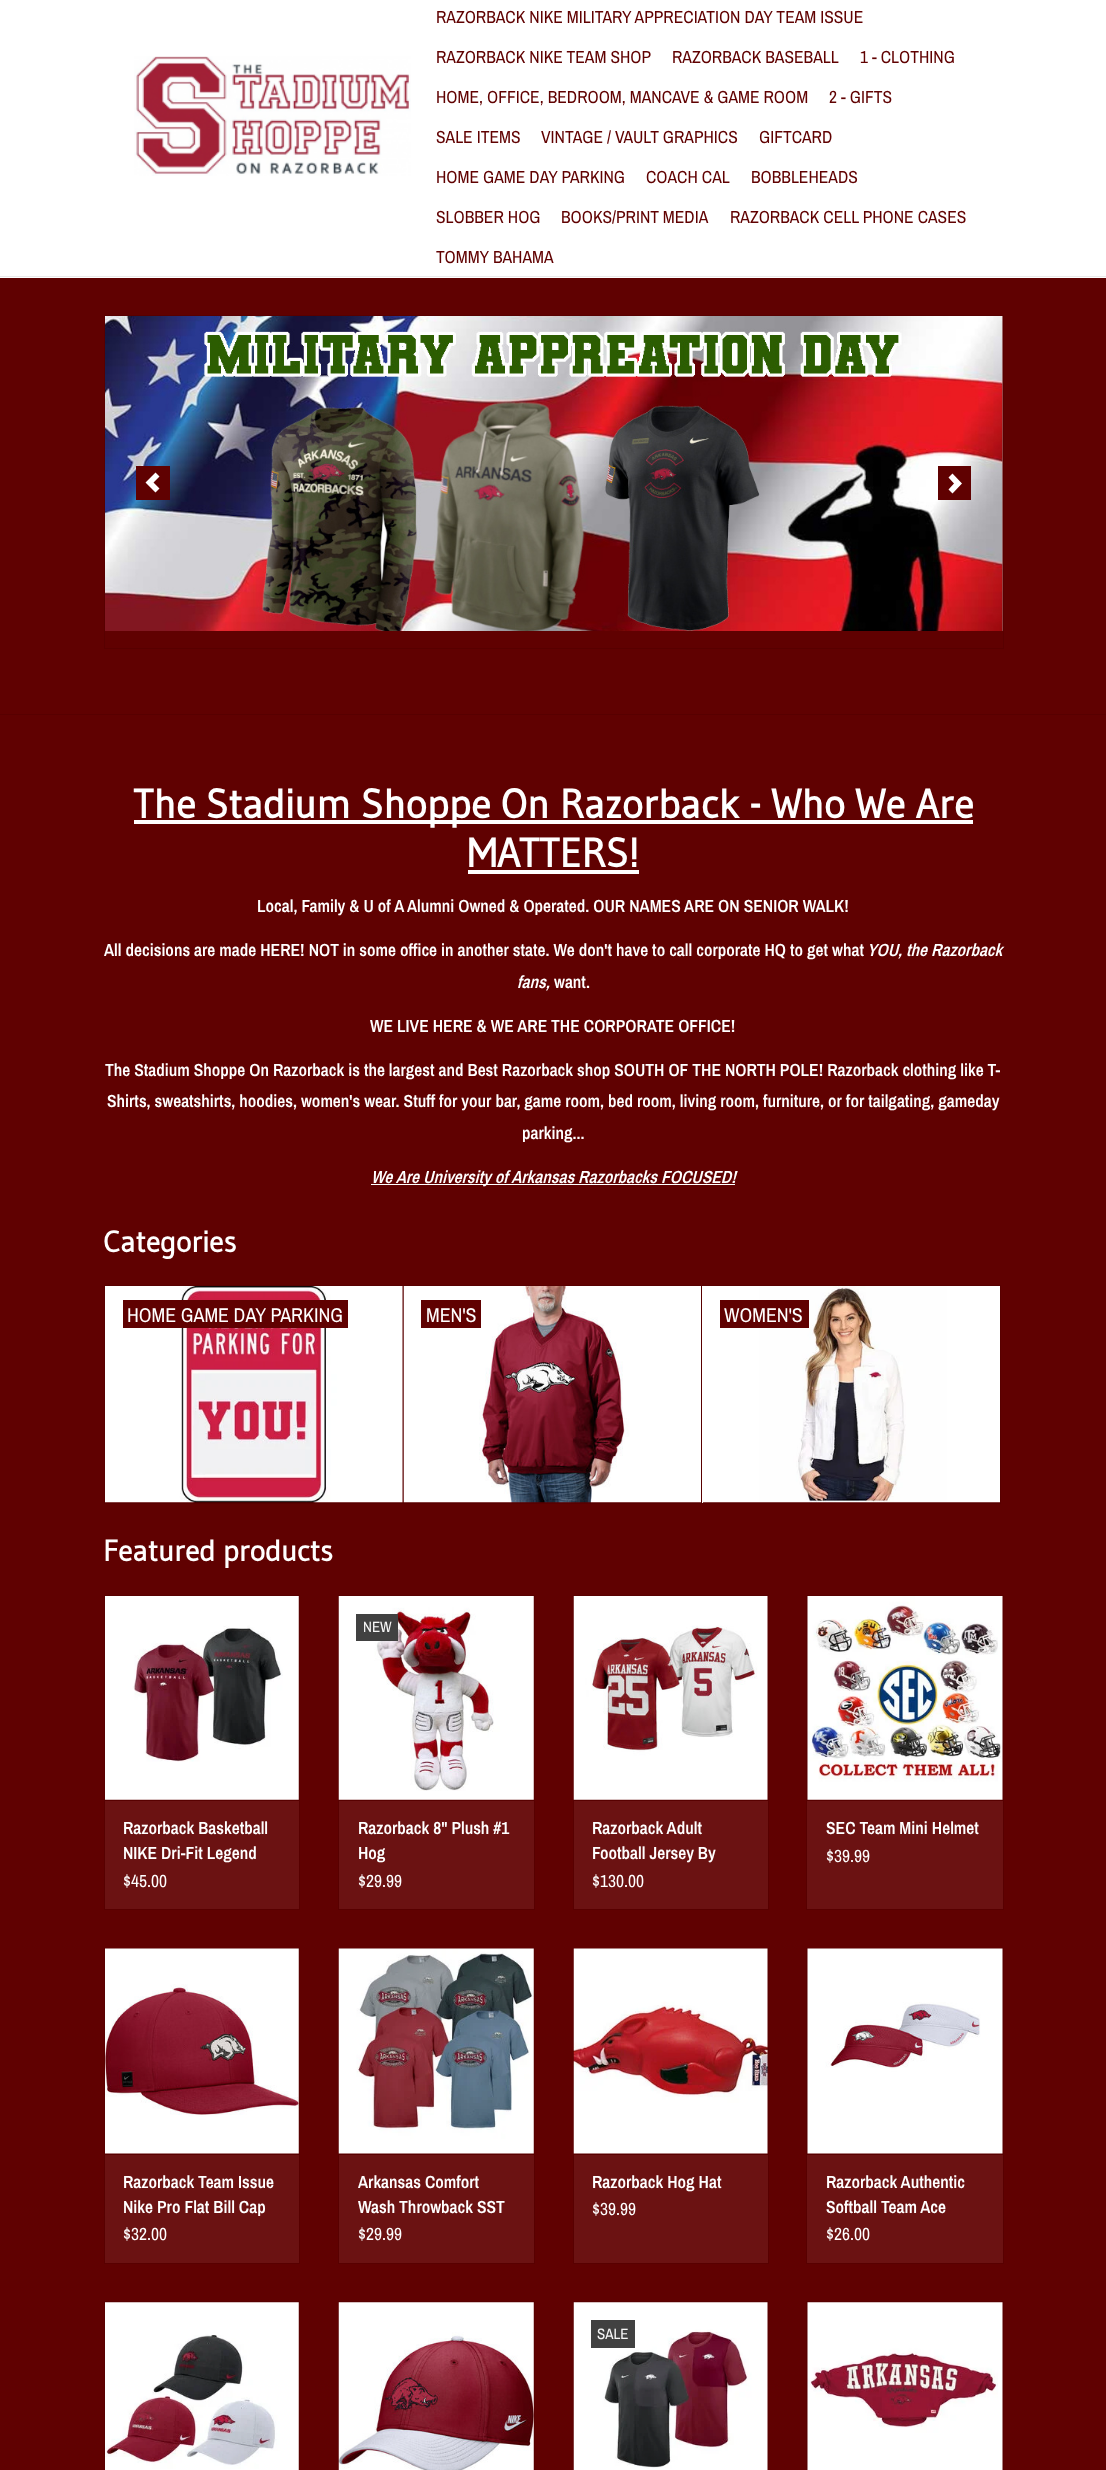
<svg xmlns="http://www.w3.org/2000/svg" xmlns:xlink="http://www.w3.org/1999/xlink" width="1106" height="2470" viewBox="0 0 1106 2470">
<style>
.cls-1{font:17.5px Archivo Narrow;fill:#600101}
.cls-2{font:bold 40.5px Gudea;fill:#ffffff}
.cls-3{font:600 17.5px Archivo Narrow;fill:#ffffff}
.cls-4{font:italic 600 17.5px Archivo Narrow;fill:#ffffff}
.cls-5{font:bold 29.5px Gudea;fill:#ffffff}
.cls-6{font:20px Archivo Narrow;fill:#ffffff}
.cls-7{font:17.5px Archivo Narrow;fill:#ffffff}
.cls-8{font:15px Archivo Narrow;fill:#f7f7f7}
</style>
<rect width="100%" height="100%" fill="#600101"/>
<rect fill="#ffffff" x="0" y="0" width="1106" height="278"/>
<rect fill="#eaeaea" x="0" y="276" width="1106" height="1"/>
<image xlink:href="image0.png" x="134" y="56" width="277" height="120"/>
<rect fill="none" stroke="#580000" x="104.5" y="315.5" width="899" height="333"/>
<rect fill="#5d0000" x="1002" y="316" width="1" height="315"/>
<image xlink:href="image1.png" x="105" y="316" width="898" height="315"/>
<rect fill="#ffffff" fill-opacity="0.25" x="1002" y="316" width="1" height="315"/>
<rect fill="#600101" x="136" y="466" width="34" height="34"/>
<path fill="#ffffff" d="M145.5 482.5L155.5 492.5L159.5 488.5L153.5 482.5L159.5 476.5L155.5 472.5Z"/>
<rect fill="#600101" x="938" y="466" width="33" height="34"/>
<path fill="#ffffff" d="M948.5 489.5L954 483.5L948.5 477.5L952.5 473.5L962 483.5L952.5 493.5Z"/>
<rect fill="#580000" x="0" y="714" width="1106" height="1"/>
<rect fill="#ffffff" x="134" y="820" width="839" height="4"/>
<rect fill="#ffffff" x="468" y="870" width="171" height="4"/>
<rect fill="#ffffff" x="371" y="1184" width="364" height="1"/>
<rect fill="none" stroke="#580000" x="104.5" y="1285.5" width="299" height="218"/>
<rect fill="#5d0000" x="105" y="1286" width="298" height="217"/>
<image xlink:href="image2.png" x="105" y="1286" width="298" height="217"/>
<path fill="#600101" d="M133 1328H348V1300H342V1328Z"/>
<path fill="#600101" d="M123 1300V1328H338H128V1300Z"/>
<rect fill="#600101" x="128" y="1300" width="214" height="28"/>
<rect fill="none" stroke="#580000" x="403.5" y="1285.5" width="299" height="218"/>
<rect fill="#5d0000" x="404" y="1502" width="297" height="1"/>
<image xlink:href="image3.png" x="403" y="1286" width="298" height="217"/>
<path fill="#600101" d="M431 1328H481V1300H476V1328ZM421 1300V1328H471H426V1300Z"/>
<rect fill="#600101" x="426" y="1300" width="50" height="28"/>
<rect fill="#ffffff" x="702" y="1286" width="1" height="217"/>
<rect fill="none" stroke="#580000" x="701.5" y="1285.5" width="299" height="218"/>
<rect fill="#5d0000" x="703" y="1502" width="297" height="1"/>
<image xlink:href="image4.png" x="703" y="1286" width="297" height="217"/>
<path fill="#600101" d="M730 1328H809V1300H804V1328Z"/>
<path fill="#600101" d="M720 1300V1328H799H725V1300Z"/>
<rect fill="#600101" x="725" y="1300" width="79" height="28"/>
<rect fill="#5d0000" x="105" y="1596" width="194" height="204"/>
<rect fill="#580000" x="104" y="1595" width="196" height="1"/>
<rect fill="#580000" x="299" y="1595" width="1" height="205"/>
<rect fill="#580000" x="104" y="1595" width="1" height="205"/>
<image xlink:href="image5.png" x="105" y="1596" width="194" height="204"/>
<rect fill="#6b1212" stroke="#580000" x="104.5" y="1800.5" width="195" height="109"/>
<rect fill="#5d0000" x="339" y="1596" width="195" height="204"/>
<rect fill="#580000" x="338" y="1595" width="197" height="1"/>
<rect fill="#580000" x="534" y="1595" width="1" height="205"/>
<rect fill="#580000" x="338" y="1595" width="1" height="205"/>
<image xlink:href="image6.png" x="338" y="1596" width="196" height="204"/>
<rect fill="#414141" x="356" y="1614" width="42" height="27"/>
<rect fill="#6b1212" stroke="#580000" x="338.5" y="1800.5" width="196" height="109"/>
<rect fill="#5d0000" x="574" y="1596" width="194" height="204"/>
<rect fill="#580000" x="573" y="1595" width="196" height="1"/>
<rect fill="#580000" x="768" y="1595" width="1" height="205"/>
<rect fill="#580000" x="573" y="1595" width="1" height="205"/>
<image xlink:href="image7.png" x="573" y="1596" width="195" height="204"/>
<rect fill="#6b1212" stroke="#580000" x="573.5" y="1800.5" width="195" height="109"/>
<rect fill="#5d0000" x="807" y="1596" width="196" height="204"/>
<rect fill="#580000" x="806" y="1595" width="198" height="1"/>
<rect fill="#580000" x="1003" y="1595" width="1" height="205"/>
<rect fill="#580000" x="806" y="1595" width="1" height="205"/>
<image xlink:href="image8.png" x="807" y="1596" width="196" height="204"/>
<rect fill="#6b1212" stroke="#580000" x="806.5" y="1800.5" width="197" height="109"/>
<rect fill="#5d0000" x="105" y="1949" width="194" height="205"/>
<rect fill="#580000" x="104" y="1948" width="196" height="1"/>
<rect fill="#580000" x="299" y="1948" width="1" height="206"/>
<rect fill="#580000" x="104" y="1948" width="1" height="206"/>
<image xlink:href="image9.png" x="105" y="1948" width="194" height="206"/>
<rect fill="#6b1212" stroke="#580000" x="104.5" y="2154.5" width="195" height="109"/>
<rect fill="#5d0000" x="339" y="1949" width="195" height="205"/>
<rect fill="#580000" x="338" y="1948" width="197" height="1"/>
<rect fill="#580000" x="534" y="1948" width="1" height="206"/>
<rect fill="#580000" x="338" y="1948" width="1" height="206"/>
<image xlink:href="image10.png" x="338" y="1948" width="196" height="206"/>
<rect fill="#6b1212" stroke="#580000" x="338.5" y="2154.5" width="196" height="109"/>
<rect fill="#5d0000" x="574" y="1949" width="194" height="205"/>
<rect fill="#580000" x="573" y="1948" width="196" height="1"/>
<rect fill="#580000" x="768" y="1948" width="1" height="206"/>
<rect fill="#580000" x="573" y="1948" width="1" height="206"/>
<image xlink:href="image11.png" x="573" y="1948" width="195" height="206"/>
<rect fill="#6b1212" stroke="#580000" x="573.5" y="2154.5" width="195" height="109"/>
<rect fill="#5d0000" x="807" y="1949" width="196" height="205"/>
<rect fill="#580000" x="806" y="1948" width="198" height="1"/>
<rect fill="#580000" x="1003" y="1948" width="1" height="206"/>
<rect fill="#580000" x="806" y="1948" width="1" height="206"/>
<image xlink:href="image12.png" x="807" y="1948" width="196" height="206"/>
<rect fill="#6b1212" stroke="#580000" x="806.5" y="2154.5" width="197" height="109"/>
<rect fill="#5d0000" x="105" y="2302" width="194" height="168"/>
<rect fill="#580000" x="104" y="2301" width="196" height="1"/>
<rect fill="#580000" x="299" y="2301" width="1" height="169"/>
<rect fill="#580000" x="104" y="2301" width="1" height="169"/>
<image xlink:href="image13.png" x="105" y="2302" width="194" height="168"/>
<rect fill="#5d0000" x="339" y="2302" width="195" height="168"/>
<rect fill="#580000" x="338" y="2301" width="197" height="1"/>
<rect fill="#580000" x="534" y="2301" width="1" height="169"/>
<rect fill="#580000" x="338" y="2301" width="1" height="169"/>
<image xlink:href="image14.png" x="338" y="2302" width="196" height="168"/>
<rect fill="#5d0000" x="574" y="2302" width="194" height="168"/>
<rect fill="#580000" x="573" y="2301" width="196" height="1"/>
<rect fill="#580000" x="768" y="2301" width="1" height="169"/>
<rect fill="#580000" x="573" y="2301" width="1" height="169"/>
<image xlink:href="image15.png" x="573" y="2302" width="195" height="168"/>
<rect fill="#414141" x="591" y="2320" width="44" height="28"/>
<rect fill="#5d0000" x="807" y="2302" width="196" height="168"/>
<rect fill="#580000" x="806" y="2301" width="198" height="1"/>
<rect fill="#580000" x="1003" y="2301" width="1" height="169"/>
<rect fill="#580000" x="806" y="2301" width="1" height="169"/>
<image xlink:href="image16.png" x="807" y="2302" width="196" height="168"/>
<text class="cls-1" x="436" y="23">RAZORBACK NIKE MILITARY APPRECIATION DAY TEAM ISSUE</text>
<text class="cls-1" x="436" y="63">RAZORBACK NIKE TEAM SHOP</text>
<text class="cls-1" x="672" y="63">RAZORBACK BASEBALL</text>
<text class="cls-1" x="860" y="63">1 - CLOTHING</text>
<text class="cls-1" x="436" y="103">HOME, OFFICE, BEDROOM, MANCAVE &amp; GAME ROOM</text>
<text class="cls-1" x="829" y="103">2 - GIFTS</text>
<text class="cls-1" x="436" y="143">SALE ITEMS</text>
<text class="cls-1" x="541" y="143">VINTAGE / VAULT GRAPHICS</text>
<text class="cls-1" x="759" y="143">GIFTCARD</text>
<text class="cls-1" x="436" y="183">HOME GAME DAY PARKING</text>
<text class="cls-1" x="646" y="183">COACH CAL</text>
<text class="cls-1" x="751" y="183">BOBBLEHEADS</text>
<text class="cls-1" x="436" y="223">SLOBBER HOG</text>
<text class="cls-1" x="561" y="223">BOOKS/PRINT MEDIA</text>
<text class="cls-1" x="730" y="223">RAZORBACK CELL PHONE CASES</text>
<text class="cls-1" x="436" y="263">TOMMY BAHAMA</text>
<text class="cls-2" x="133" y="818">The Stadium Shoppe On Razorback - Who We Are</text>
<text class="cls-2" x="467" y="867">MATTERS!</text>
<text class="cls-3" x="257" y="912">Local, Family &amp; U of A Alumni Owned &amp; Operated. OUR NAMES ARE ON SENIOR WALK!</text>
<text class="cls-3" x="104" y="956">All decisions are made HERE! NOT in some office in another state. We don't have to call corporate HQ to get what</text>
<text class="cls-4" x="867" y="956">YOU, the Razorback</text>
<text class="cls-4" x="517" y="988">fans,</text>
<text class="cls-3" x="554" y="988">want.</text>
<text class="cls-3" x="370" y="1032">WE LIVE HERE &amp; WE ARE THE CORPORATE OFFICE!</text>
<text class="cls-3" x="105" y="1076">The Stadium Shoppe On Razorback is the largest and Best Razorback shop SOUTH OF THE NORTH POLE! Razorback clothing like T-</text>
<text class="cls-3" x="107" y="1107">Shirts, sweatshirts, hoodies, women's wear. Stuff for your bar, game room, bed room, living room, furniture, or for tailgating, gameday</text>
<text class="cls-3" x="522" y="1139">parking...</text>
<text class="cls-4" x="371" y="1183">We Are University of Arkansas Razorbacks FOCUSED!</text>
<text class="cls-5" x="103" y="1252">Categories</text>
<text class="cls-6" x="127" y="1322">HOME GAME DAY PARKING</text>
<text class="cls-6" x="426" y="1322">MEN'S</text>
<text class="cls-6" x="724" y="1322">WOMEN'S</text>
<text class="cls-5" x="103" y="1561">Featured products</text>
<text class="cls-3"><tspan x="123" y="1834">Razorback Basketball</tspan><tspan x="123" y="1859">NIKE Dri-Fit Legend</tspan></text>
<text class="cls-7" x="123" y="1887">$45.00</text>
<text class="cls-8" x="363" y="1632">NEW</text>
<text class="cls-3"><tspan x="358" y="1834">Razorback 8" Plush #1</tspan><tspan x="358" y="1859">Hog</tspan></text>
<text class="cls-7" x="358" y="1887">$29.99</text>
<text class="cls-3"><tspan x="592" y="1834">Razorback Adult</tspan><tspan x="592" y="1859">Football Jersey By</tspan></text>
<text class="cls-7" x="592" y="1887">$130.00</text>
<text class="cls-3" x="826" y="1834">SEC Team Mini Helmet</text>
<text class="cls-7" x="826" y="1862">$39.99</text>
<text class="cls-3"><tspan x="123" y="2188">Razorback Team Issue</tspan><tspan x="123" y="2213">Nike Pro Flat Bill Cap</tspan></text>
<text class="cls-7" x="123" y="2240">$32.00</text>
<text class="cls-3"><tspan x="358" y="2188">Arkansas Comfort</tspan><tspan x="358" y="2213">Wash Throwback SST</tspan></text>
<text class="cls-7" x="358" y="2240">$29.99</text>
<text class="cls-3" x="592" y="2188">Razorback Hog Hat</text>
<text class="cls-7" x="592" y="2215">$39.99</text>
<text class="cls-3"><tspan x="826" y="2188">Razorback Authentic</tspan><tspan x="826" y="2213">Softball Team Ace</tspan></text>
<text class="cls-7" x="826" y="2240">$26.00</text>
<text class="cls-8" x="597" y="2339">SALE</text>
</svg>
